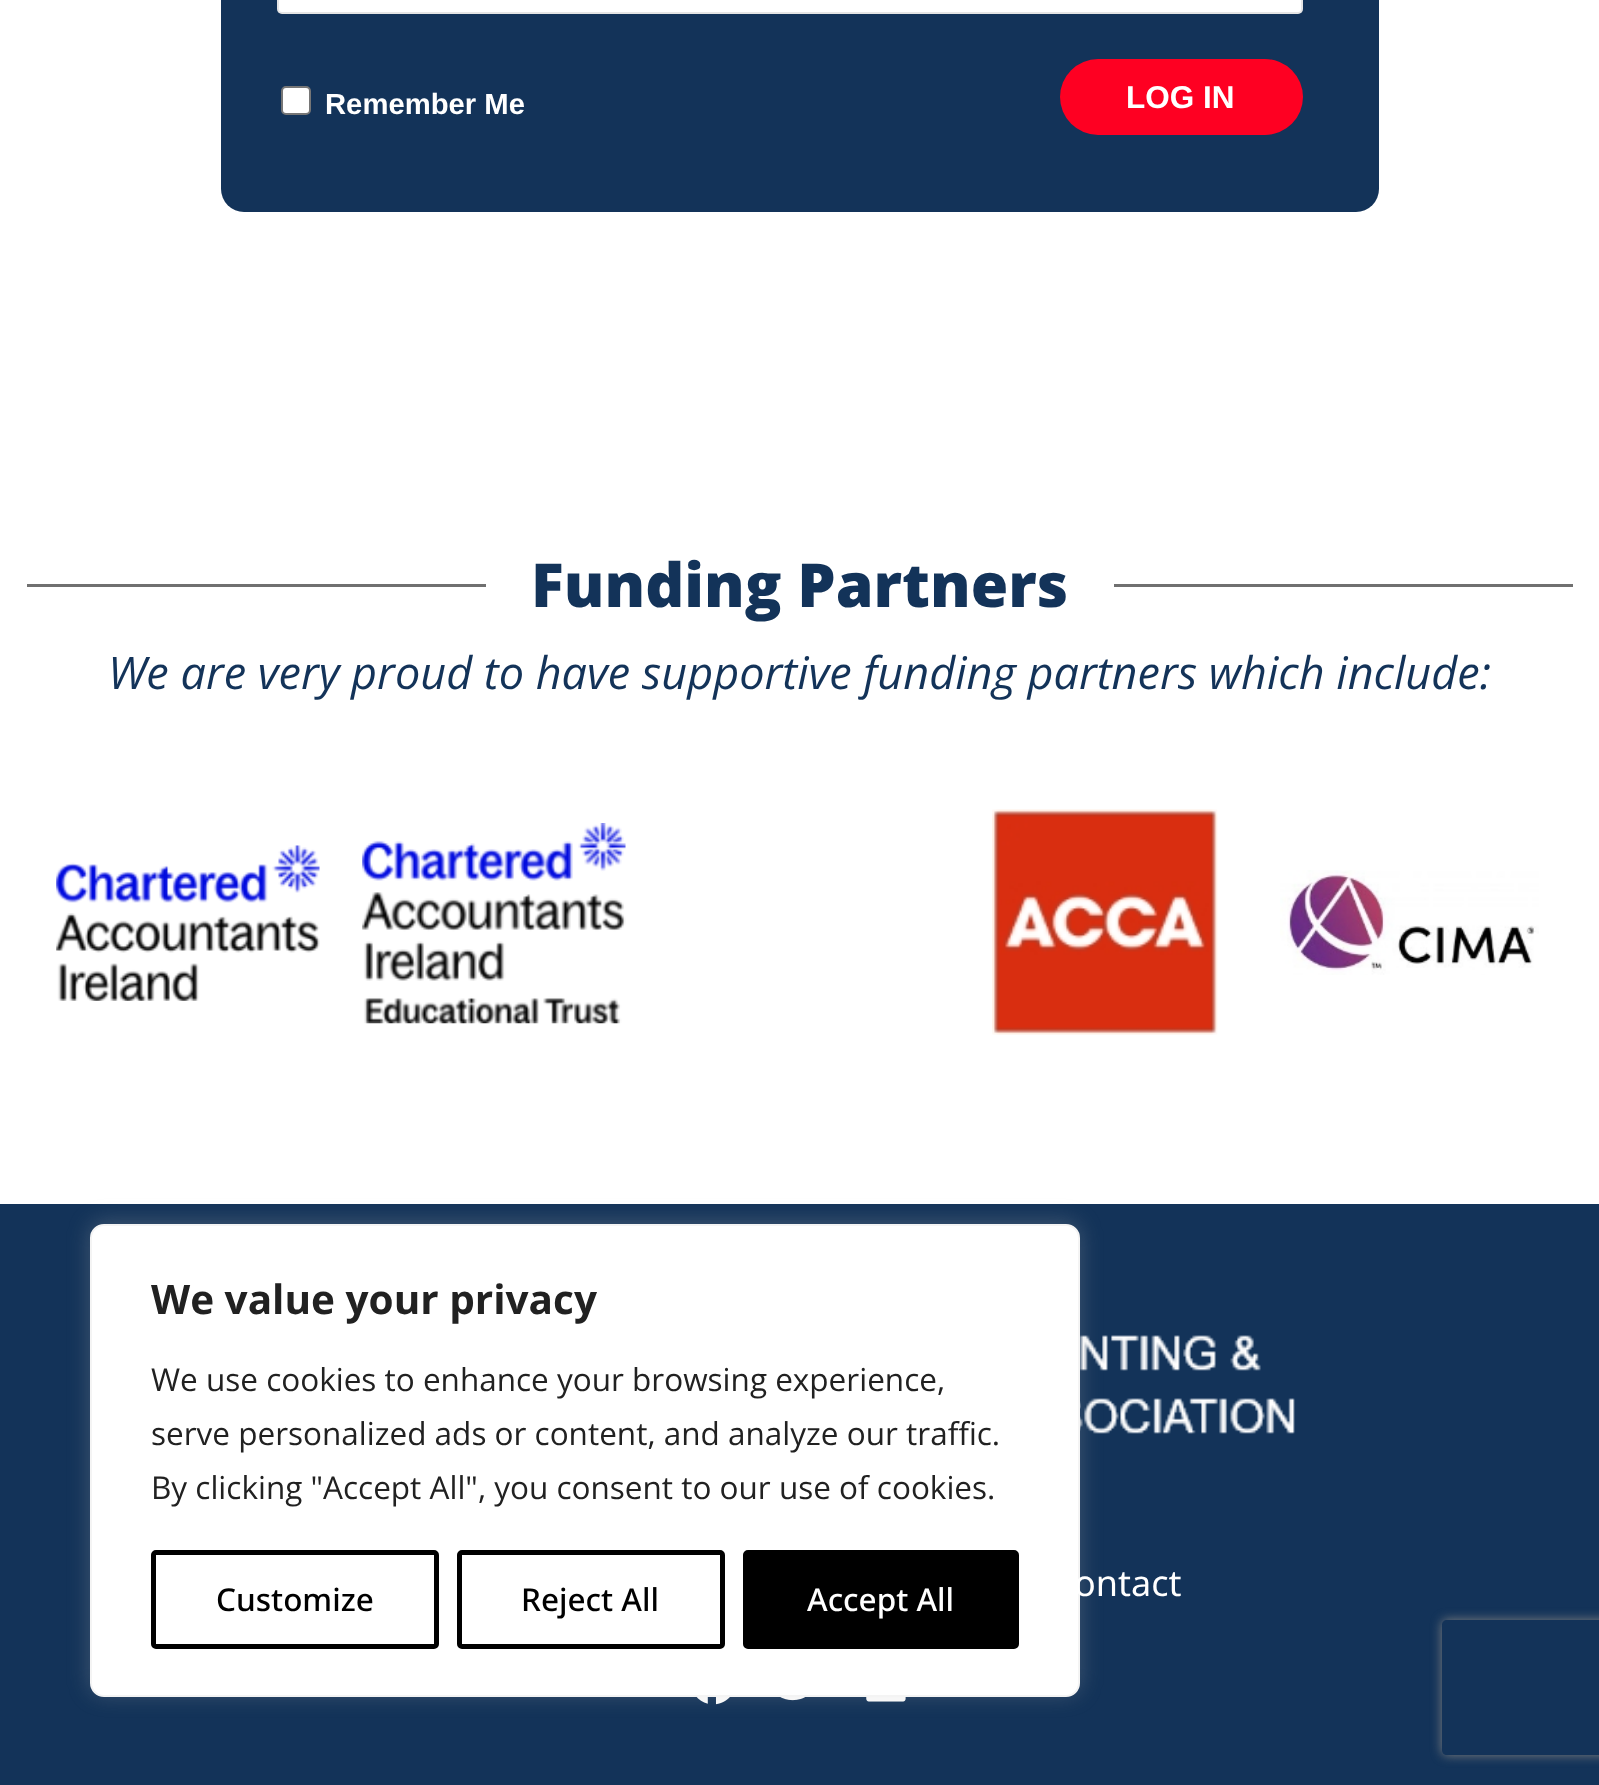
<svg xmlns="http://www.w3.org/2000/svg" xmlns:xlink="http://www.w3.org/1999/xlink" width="1599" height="1785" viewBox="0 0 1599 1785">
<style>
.cls-1{font:bold 29.25px Liberation Sans;fill:#ffffff}
.cls-2{font:bold 31.5px Liberation Sans;fill:#ffffff}
.cls-3{font:800 60.75px Open Sans;fill:#133359}
.cls-4{font:italic 45px Open Sans;fill:#133359}
.cls-5{font:36px Noto Sans;fill:#ffffff}
.cls-6{font:bold 40.5px Open Sans;fill:#212121}
.cls-7{font:31.5px Open Sans;fill:#212121}
.cls-8{font:500 31.5px Noto Sans;fill:#000000}
.cls-9{font:500 31.5px Noto Sans;fill:#ffffff}
</style>
<defs>
<clipPath id="clip1"><path d="M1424 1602H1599V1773H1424ZM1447 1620H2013C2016 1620 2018 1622 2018 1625V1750C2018 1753 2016 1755 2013 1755H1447C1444 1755 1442 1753 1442 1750V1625C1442 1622 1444 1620 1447 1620Z" clip-rule="evenodd"/></clipPath>
</defs>
<rect width="100%" height="100%" fill="#ffffff"/>
<rect fill="#133359" x="221" y="-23" width="1158" height="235" rx="23"/>
<rect fill="#ffffff" x="277" y="-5" width="1026" height="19" rx="5"/>
<rect fill="none" stroke="#000000" stroke-opacity="0.1" stroke-width="2" x="278" y="-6" width="1024" height="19" rx="4"/>
<rect fill="#ffffff" stroke="#767676" stroke-width="2" x="282" y="87" width="28" height="27" rx="4"/>
<rect fill="#fe0022" x="1060" y="59" width="243" height="76" rx="38"/>
<rect fill="#707070" x="27" y="584" width="1546" height="3"/>
<rect fill="#ffffff" x="486" y="584" width="628" height="3"/>
<image xlink:href="image0.png" x="56" y="845" width="264" height="156"/>
<image xlink:href="image1.png" x="362" y="823" width="264" height="201"/>
<image xlink:href="image2.png" x="992" y="809" width="226" height="226"/>
<image xlink:href="image3.png" x="1280" y="870" width="259" height="105"/>
<rect fill="#133359" x="0" y="1204" width="1599" height="581"/>
<image xlink:href="image4.png" x="1080" y="1335" width="215" height="99"/>
<image xlink:href="image5.png" x="696" y="1697" width="34" height="8"/>
<image xlink:href="image6.png" x="780" y="1697" width="25" height="4"/>
<image xlink:href="image7.png" x="866" y="1697" width="40" height="5"/>
<rect fill="#acabab" fill-opacity="0.3" filter="blur(11px)" x="90" y="1222" width="990" height="472" rx="14"/>
<rect fill="#ffffff" stroke="#f4f4f4" stroke-width="2" x="91" y="1225" width="988" height="471" rx="13"/>
<rect fill="none" stroke="#000000" stroke-width="5" x="153.5" y="1552.5" width="283" height="94" rx="2.5"/>
<rect fill="none" stroke="#000000" stroke-width="5" x="459.5" y="1552.5" width="263" height="94" rx="2.5"/>
<rect fill="#000000" stroke="#000000" stroke-width="5" x="745.5" y="1552.5" width="271" height="94" rx="2.5"/>
<g clip-path="url(#clip1)">
<rect fill="#808080" filter="blur(5.5px)" x="1442" y="1620" width="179" height="135" rx="5"/>
</g>
<text class="cls-1" x="325" y="114">Remember Me</text>
<text class="cls-2" x="1126" y="108">LOG IN</text>
<text class="cls-3" x="531" y="607">Funding Partners</text>
<text class="cls-4" x="108" y="689">We are very proud to have supportive funding partners which include:</text>
<text class="cls-5" x="1074" y="1596">ontact</text>
<text class="cls-6" x="151" y="1314">We value your privacy</text>
<text class="cls-7"><tspan x="151" y="1391">We use cookies to enhance your browsing experience,</tspan><tspan x="151" y="1445">serve personalized ads or content, and analyze our traffic.</tspan><tspan x="151" y="1499">By clicking "Accept All", you consent to our use of cookies.</tspan></text>
<text class="cls-8" x="216" y="1611">Customize</text>
<text class="cls-8" x="521" y="1611">Reject All</text>
<text class="cls-9" x="807" y="1611">Accept All</text>
</svg>
